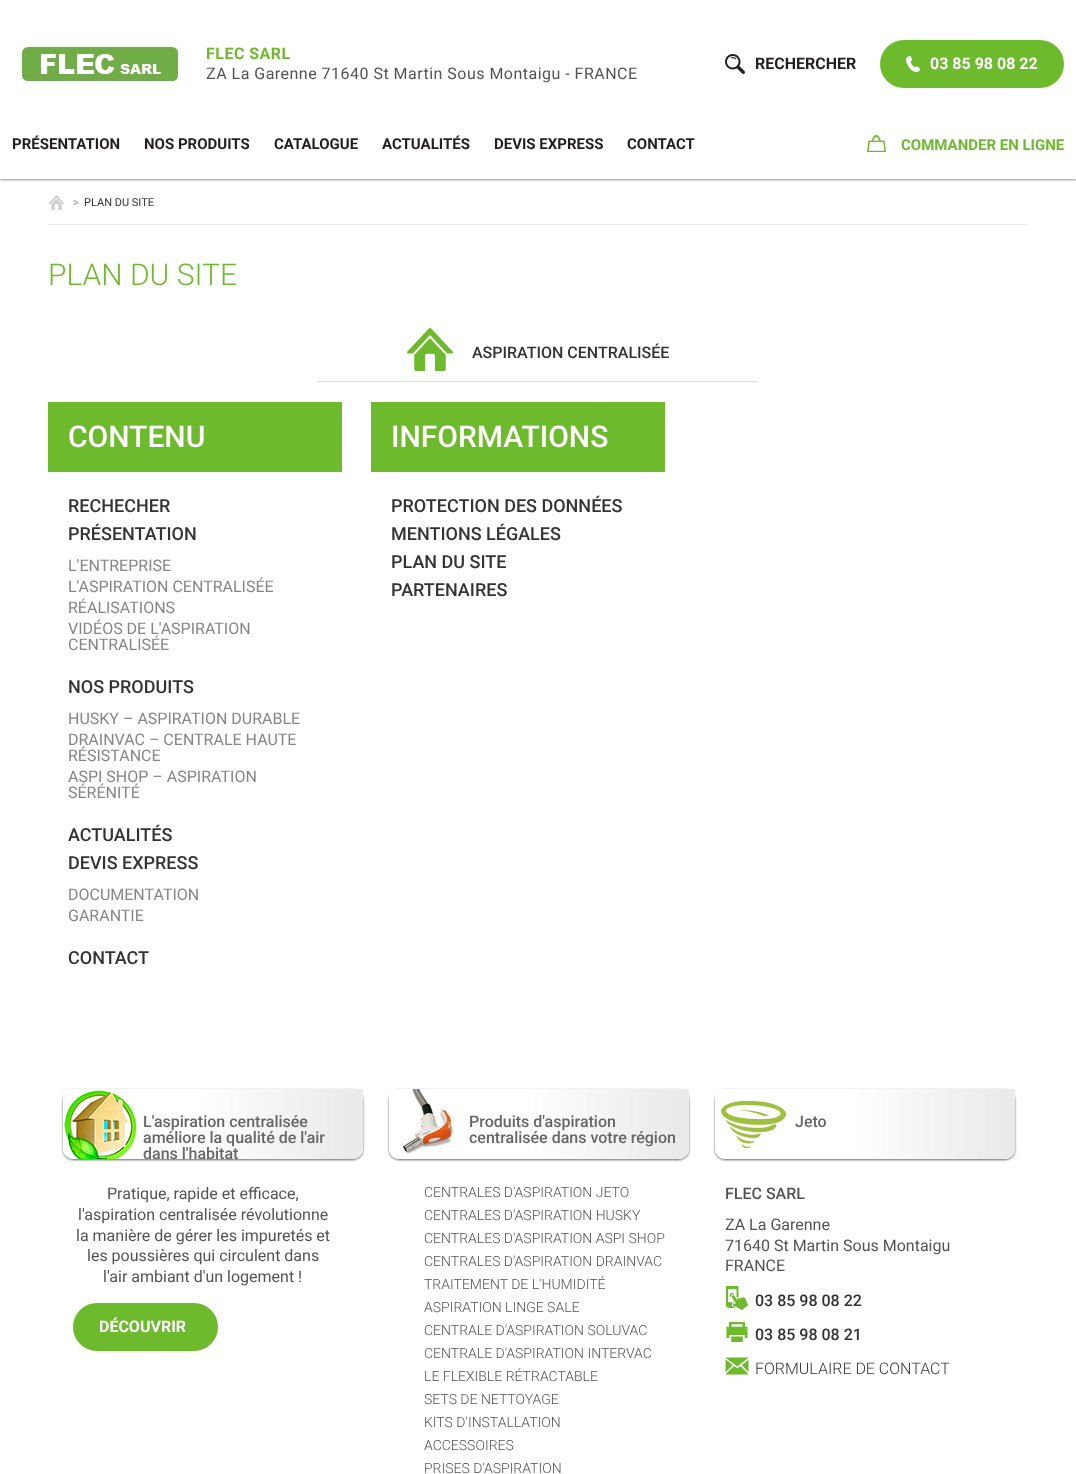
<svg xmlns="http://www.w3.org/2000/svg" xmlns:xlink="http://www.w3.org/1999/xlink" width="1076" height="1474" viewBox="0 0 1076 1474">
<style>
.cls-1{font:bold 16px Roboto;letter-spacing:0.48px;fill:#6dba2c}
.cls-2{font:16px Roboto;letter-spacing:0.48px;fill:#535353}
.cls-3{font:bold 16px Roboto;fill:#231f20}
.cls-4{font:bold 16px Roboto;fill:#ffffff}
.cls-5{font:bold 15px Roboto;fill:#231f20}
.cls-6{font:bold 15px Roboto;fill:#6dba2c}
.cls-7{font:11px Roboto;fill:#868686}
.cls-8{font:11px Roboto;fill:#333333}
.cls-9{font:300 30px Roboto;fill:#6dba2c}
.cls-10{font:500 16px Roboto;fill:#333333}
.cls-11{font:500 30px Roboto;fill:#ffffff}
.cls-12{font:500 18px Roboto;fill:#333333}
.cls-13{font:16px Roboto;fill:#868686}
.cls-14{font:500 16px Roboto;fill:#666666}
.cls-15{font:16px Roboto;fill:#535353}
.cls-16{font:300 14px Roboto;fill:#535353}
.cls-17{font:500 16px Roboto;fill:#535353}
.cls-18{font:300 16px Roboto;fill:#333333}
</style>
<defs>
<clipPath id="clip1"><path d="M63 1089H363V1149C363 1154.5 358.5 1159 353 1159H73C67.5 1159 63 1154.5 63 1149Z"/></clipPath>
</defs>
<rect width="100%" height="100%" fill="#ffffff"/>
<image xlink:href="image0.png" x="0" y="179" width="1076" height="2"/>
<rect fill="#999999" filter="blur(1px)" x="0" y="1" width="1076" height="179"/>
<rect fill="#ffffff" x="0" y="0" width="1076" height="179"/>
<image xlink:href="image1.png" x="12" y="42" width="167" height="44"/>
<image xlink:href="image2.png" x="725" y="54" width="20" height="20"/>
<rect fill="#6dba2c" x="880" y="40" width="184" height="48" rx="24"/>
<image xlink:href="image3.png" x="906" y="56" width="14" height="16"/>
<image xlink:href="image4.png" x="867" y="135" width="19" height="17"/>
<rect fill="#eaeaea" x="48" y="224" width="980" height="1"/>
<image xlink:href="image5.png" x="49" y="195" width="15" height="15"/>
<rect fill="#dddddd" x="318" y="381" width="440" height="1"/>
<image xlink:href="image6.png" x="407" y="328" width="46" height="43"/>
<rect fill="#6dba2c" x="48" y="402" width="294" height="70"/>
<rect fill="#6dba2c" x="371" y="402" width="294" height="70"/>
<rect fill="#656565" filter="blur(1px)" x="63" y="1090" width="300" height="70" rx="10"/>
<path fill="#ffffff" d="M63 1089H363V1149C363 1154.5 358.5 1159 353 1159H73C67.5 1159 63 1154.5 63 1149Z"/>
<image xlink:href="image7.png" x="63" y="1089" width="300" height="70"/>
<image xlink:href="image8.png" x="64" y="1090" width="73" height="69"/>
<rect fill="#6dba2c" x="73" y="1303" width="145" height="48" rx="24"/>
<rect fill="#656565" filter="blur(1px)" x="389" y="1090" width="300" height="70" rx="10"/>
<path fill="#ffffff" d="M389 1089H689V1149C689 1154.5 684.5 1159 679 1159H399C393.5 1159 389 1154.5 389 1149Z"/>
<image xlink:href="image7.png" x="389" y="1089" width="300" height="70"/>
<image xlink:href="image9.png" x="401" y="1089" width="55" height="65"/>
<rect fill="#656565" filter="blur(1px)" x="715" y="1090" width="300" height="70" rx="10"/>
<path fill="#ffffff" d="M715 1089H1015V1149C1015 1154.5 1010.5 1159 1005 1159H725C719.5 1159 715 1154.5 715 1149Z"/>
<image xlink:href="image7.png" x="715" y="1089" width="300" height="70"/>
<image xlink:href="image10.png" x="719" y="1097" width="68" height="56"/>
<image xlink:href="image11.png" x="726" y="1286" width="22" height="24"/>
<image xlink:href="image12.png" x="726" y="1322" width="22" height="20"/>
<image xlink:href="image13.png" x="725" y="1357" width="24" height="18"/>
<text class="cls-1" x="206" y="59">FLEC SARL</text>
<text class="cls-2" x="206" y="79">ZA La Garenne 71640 St Martin Sous Montaigu - FRANCE</text>
<text class="cls-3" x="755" y="69">RECHERCHER</text>
<text class="cls-4" x="930" y="69">03 85 98 08 22</text>
<text class="cls-5" x="12" y="149">PRÉSENTATION</text>
<text class="cls-5" x="144" y="149">NOS PRODUITS</text>
<text class="cls-5" x="274" y="149">CATALOGUE</text>
<text class="cls-5" x="382" y="149">ACTUALITÉS</text>
<text class="cls-5" x="494" y="149">DEVIS EXPRESS</text>
<text class="cls-5" x="627" y="149">CONTACT</text>
<text class="cls-6" x="901" y="150">COMMANDER EN LIGNE</text>
<text class="cls-7" x="73" y="206">&gt;</text>
<text class="cls-8" x="84" y="206">PLAN DU SITE</text>
<text class="cls-9" x="48" y="285">PLAN DU SITE</text>
<text class="cls-10" x="472" y="358">ASPIRATION CENTRALISÉE</text>
<text class="cls-11" x="68" y="447">CONTENU</text>
<text class="cls-12"><tspan x="68" y="512">RECHECHER</tspan><tspan x="68" y="540">PRÉSENTATION</tspan></text>
<text class="cls-13"><tspan x="68" y="571">L'ENTREPRISE</tspan><tspan x="68" y="592">L'ASPIRATION CENTRALISÉE</tspan><tspan x="68" y="613">RÉALISATIONS</tspan><tspan x="68" y="634">VIDÉOS DE L'ASPIRATION</tspan><tspan x="68" y="650">CENTRALISÉE</tspan></text>
<text class="cls-12" x="68" y="693">NOS PRODUITS</text>
<text class="cls-13"><tspan x="68" y="724">HUSKY – ASPIRATION DURABLE</tspan><tspan x="68" y="745">DRAINVAC – CENTRALE HAUTE</tspan><tspan x="68" y="761">RÉSISTANCE</tspan><tspan x="68" y="782">ASPI SHOP – ASPIRATION</tspan><tspan x="68" y="798">SÉRÉNITÉ</tspan></text>
<text class="cls-12"><tspan x="68" y="841">ACTUALITÉS</tspan><tspan x="68" y="869">DEVIS EXPRESS</tspan></text>
<text class="cls-13"><tspan x="68" y="900">DOCUMENTATION</tspan><tspan x="68" y="921">GARANTIE</tspan></text>
<text class="cls-12" x="68" y="964">CONTACT</text>
<text class="cls-11" x="391" y="447">INFORMATIONS</text>
<text class="cls-12"><tspan x="391" y="512">PROTECTION DES DONNÉES</tspan><tspan x="391" y="540">MENTIONS LÉGALES</tspan><tspan x="391" y="568">PLAN DU SITE</tspan><tspan x="391" y="596">PARTENAIRES</tspan></text>
<text class="cls-14"><tspan x="143" y="1127">L'aspiration centralisée</tspan><tspan x="143" y="1143">améliore la qualité de l'air</tspan></text>
<g clip-path="url(#clip1)">
<text class="cls-14" x="143" y="1159">dans l'habitat</text>
</g>
<text class="cls-15" x="107" y="1199">Pratique, rapide et efficace,</text>
<text class="cls-15" x="78" y="1220">l'aspiration centralisée révolutionne</text>
<text class="cls-15" x="76" y="1241">la manière de gérer les impuretés et</text>
<text class="cls-15" x="87" y="1261">les poussières qui circulent dans</text>
<text class="cls-15" x="103" y="1282">l'air ambiant d'un logement !</text>
<text class="cls-4" x="99" y="1332">DÉCOUVRIR</text>
<text class="cls-14"><tspan x="469" y="1127">Produits d'aspiration</tspan><tspan x="469" y="1143">centralisée dans votre région</tspan></text>
<text class="cls-16"><tspan x="424" y="1197">CENTRALES D'ASPIRATION JETO</tspan><tspan x="424" y="1220">CENTRALES D'ASPIRATION HUSKY</tspan><tspan x="424" y="1243">CENTRALES D'ASPIRATION ASPI SHOP</tspan><tspan x="424" y="1266">CENTRALES D'ASPIRATION DRAINVAC</tspan><tspan x="424" y="1289">TRAITEMENT DE L'HUMIDITÉ</tspan><tspan x="424" y="1312">ASPIRATION LINGE SALE</tspan><tspan x="424" y="1335">CENTRALE D'ASPIRATION SOLUVAC</tspan><tspan x="424" y="1358">CENTRALE D'ASPIRATION INTERVAC</tspan><tspan x="424" y="1381">LE FLEXIBLE RÉTRACTABLE</tspan><tspan x="424" y="1404">SETS DE NETTOYAGE</tspan><tspan x="424" y="1427">KITS D'INSTALLATION</tspan><tspan x="424" y="1450">ACCESSOIRES</tspan><tspan x="424" y="1473">PRISES D'ASPIRATION</tspan></text>
<text class="cls-14" x="795" y="1127">Jeto</text>
<text class="cls-17" x="725" y="1199">FLEC SARL</text>
<text class="cls-15"><tspan x="725" y="1230">ZA La Garenne</tspan><tspan x="725" y="1251">71640 St Martin Sous Montaigu</tspan><tspan x="725" y="1271">FRANCE</tspan></text>
<text class="cls-10" x="755" y="1306">03 85 98 08 22</text>
<text class="cls-10" x="755" y="1340">03 85 98 08 21</text>
<text class="cls-18" x="755" y="1374">FORMULAIRE DE CONTACT</text>
</svg>
